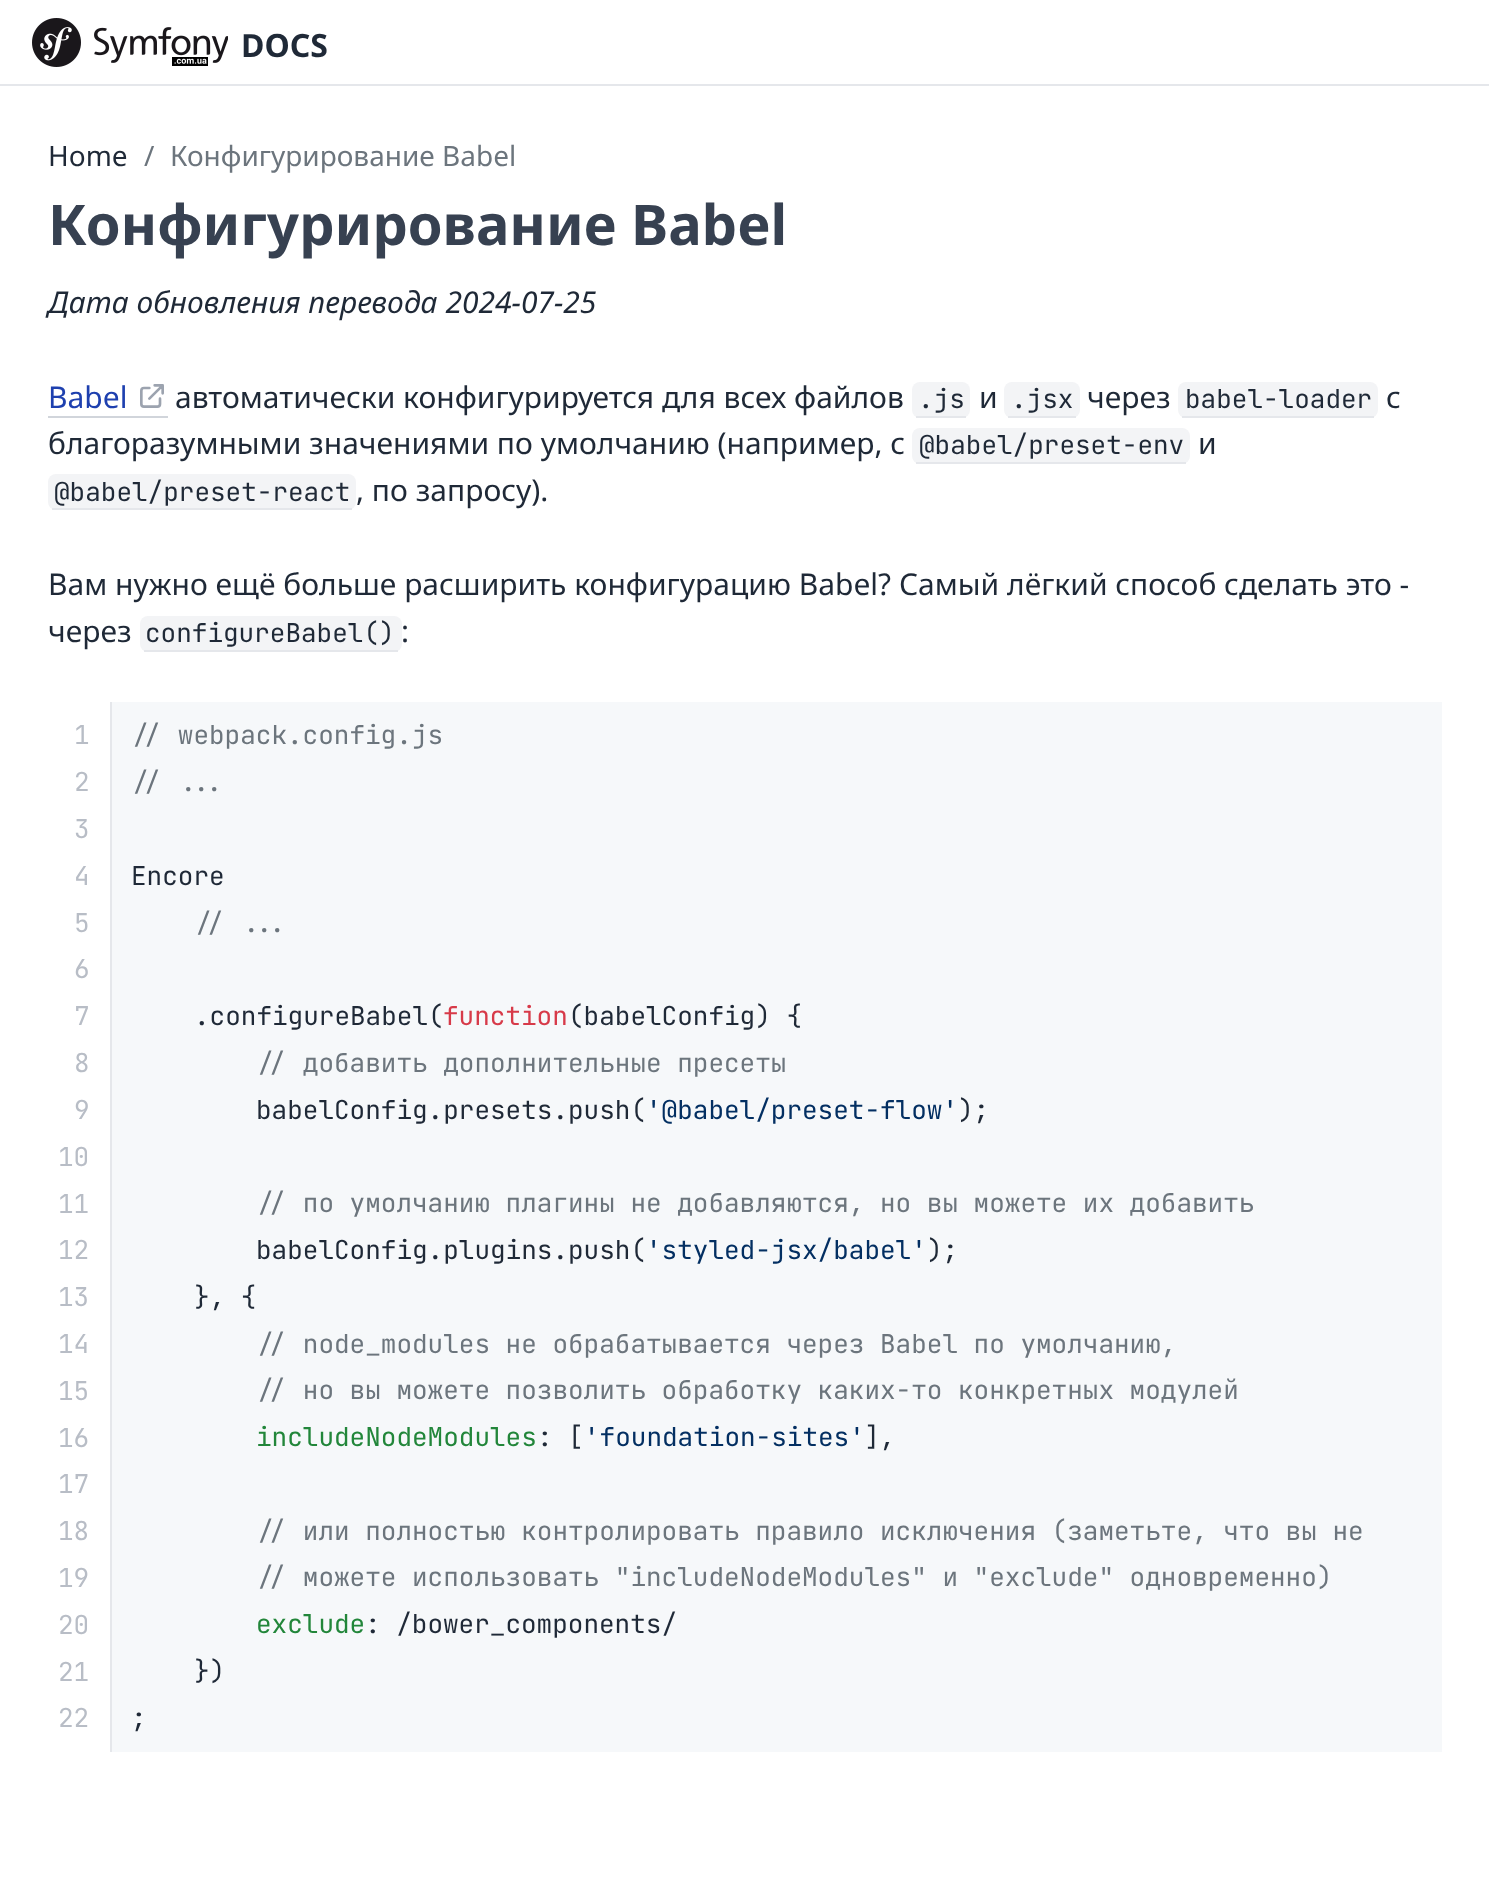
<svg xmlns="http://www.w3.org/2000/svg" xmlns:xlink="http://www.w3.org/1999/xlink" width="1489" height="1897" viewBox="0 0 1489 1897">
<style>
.cls-1{font:bold 32px Noto Sans;fill:#1f2937}
.cls-2{font:28px Noto Sans;fill:#1f2937}
.cls-3{font:28px Noto Sans;fill:#6c757d}
.cls-4{font:bold 56px Noto Sans;fill:#374151}
.cls-5{font:italic 30px Noto Sans;fill:#1f2937}
.cls-6{font:30px Noto Sans;fill:#1e40af}
.cls-7{font:30px Noto Sans;fill:#1f2937}
.cls-8{font:26px JetBrains Mono;fill:#1f2937}
.cls-9{font:26px JetBrains Mono;fill:#b8bdc6}
.cls-10{font:26px JetBrains Mono;fill:#6c757d}
.cls-11{font:26px JetBrains Mono;fill:#d73a49}
.cls-12{font:26px JetBrains Mono;fill:#032f62}
.cls-13{font:26px JetBrains Mono;fill:#22863a}
</style>
<rect width="100%" height="100%" fill="#ffffff"/>
<rect fill="#e5e7eb" x="0" y="84" width="1489" height="2"/>
<image xlink:href="image0.png" x="32" y="18" width="196" height="49"/>
<rect fill="#d1d5db" x="48" y="416" width="120" height="2"/>
<image xlink:href="image1.png" x="140" y="384" width="24" height="24"/>
<rect fill="#f3f4f6" x="912" y="382" width="58" height="36" rx="8"/>
<rect fill="#e5e7eb" x="916" y="416" width="50" height="2"/>
<rect fill="#f3f4f6" x="1004" y="382" width="76" height="36" rx="8"/>
<rect fill="#e5e7eb" x="1008" y="416" width="68" height="2"/>
<rect fill="#f3f4f6" x="1178" y="382" width="200" height="36" rx="8"/>
<rect fill="#e5e7eb" x="1182" y="416" width="192" height="2"/>
<rect fill="#f3f4f6" x="912" y="428" width="278" height="36" rx="8"/>
<rect fill="#e5e7eb" x="916" y="462" width="270" height="2"/>
<rect fill="#f3f4f6" x="48" y="474" width="308" height="36" rx="8"/>
<rect fill="#e5e7eb" x="52" y="508" width="300" height="2"/>
<rect fill="#f3f4f6" x="140" y="616" width="262" height="36" rx="8"/>
<rect fill="#e5e7eb" x="144" y="650" width="254" height="2"/>
<rect fill="#e5e7eb" x="110" y="702" width="2" height="1050"/>
<rect fill="#f6f8fa" x="112" y="702" width="1330" height="1050"/>
<text class="cls-1" x="241" y="57">DOCS</text>
<text class="cls-2" x="48" y="166">Home</text>
<text class="cls-3" x="144" y="166">/</text>
<text class="cls-3" x="170" y="166">Конфигурирование Babel</text>
<text class="cls-4" x="48" y="245">Конфигурирование Babel</text>
<text class="cls-5" x="48" y="313">Дата обновления перевода 2024-07-25</text>
<text class="cls-6" x="48" y="408">Babel</text>
<text class="cls-7" x="175" y="408">автоматически конфигурируется для всех файлов</text>
<text class="cls-8" x="918" y="408">.js</text>
<text class="cls-7" x="979" y="408">и</text>
<text class="cls-8" x="1011" y="408">.jsx</text>
<text class="cls-7" x="1087" y="408">через</text>
<text class="cls-8" x="1185" y="408">babel-loader</text>
<text class="cls-7" x="1386" y="408">с</text>
<text class="cls-7" x="48" y="454">благоразумными значениями по умолчанию (например, с</text>
<text class="cls-8" x="919" y="454">@babel/preset-env</text>
<text class="cls-7" x="1198" y="454">и</text>
<text class="cls-8" x="54" y="501">@babel/preset-react</text>
<text class="cls-7" x="356" y="501">, по запросу).</text>
<text class="cls-7"><tspan x="48" y="595">Вам нужно ещё больше расширить конфигурацию Babel? Самый лёгкий способ сделать это -</tspan><tspan x="48" y="642">через</tspan></text>
<text class="cls-8" x="145" y="642">configureBabel()</text>
<text class="cls-7" x="401" y="642">:</text>
<text class="cls-9"><tspan x="74" y="744">1</tspan><tspan x="74" y="791">2</tspan><tspan x="74" y="838">3</tspan><tspan x="74" y="885">4</tspan><tspan x="74" y="932">5</tspan><tspan x="74" y="978">6</tspan><tspan x="74" y="1025">7</tspan><tspan x="74" y="1072">8</tspan><tspan x="74" y="1119">9</tspan></text>
<text class="cls-9"><tspan x="58" y="1166">10</tspan><tspan x="58" y="1213">11</tspan><tspan x="58" y="1259">12</tspan><tspan x="58" y="1306">13</tspan><tspan x="58" y="1353">14</tspan><tspan x="58" y="1400">15</tspan><tspan x="58" y="1447">16</tspan><tspan x="58" y="1493">17</tspan><tspan x="58" y="1540">18</tspan><tspan x="58" y="1587">19</tspan><tspan x="58" y="1634">20</tspan><tspan x="58" y="1681">21</tspan><tspan x="58" y="1727">22</tspan></text>
<text class="cls-10"><tspan x="131" y="744">// webpack.config.js</tspan><tspan x="131" y="791">// ...</tspan></text>
<text class="cls-8" x="131" y="885">Encore</text>
<text class="cls-10" x="194" y="932">// ...</text>
<text class="cls-8" x="194" y="1025">.configureBabel(</text>
<text class="cls-11" x="443" y="1025">function</text>
<text class="cls-8" x="568" y="1025">(babelConfig) {</text>
<text class="cls-10" x="256" y="1072">// добавить дополнительные пресеты</text>
<text class="cls-8" x="256" y="1119">babelConfig.presets.push(</text>
<text class="cls-12" x="646" y="1119">'@babel/preset-flow'</text>
<text class="cls-8" x="958" y="1119">);</text>
<text class="cls-10" x="256" y="1212">// по умолчанию плагины не добавляются, но вы можете их добавить</text>
<text class="cls-8" x="256" y="1259">babelConfig.plugins.push(</text>
<text class="cls-12" x="646" y="1259">'styled-jsx/babel'</text>
<text class="cls-8" x="927" y="1259">);</text>
<text class="cls-8" x="194" y="1306">}, {</text>
<text class="cls-10"><tspan x="256" y="1353">// node_modules не обрабатывается через Babel по умолчанию,</tspan><tspan x="256" y="1399">// но вы можете позволить обработку каких-то конкретных модулей</tspan></text>
<text class="cls-13" x="256" y="1446">includeNodeModules</text>
<text class="cls-8" x="537" y="1446">: [</text>
<text class="cls-12" x="584" y="1446">'foundation-sites'</text>
<text class="cls-8" x="864" y="1446">],</text>
<text class="cls-10"><tspan x="256" y="1540">// или полностью контролировать правило исключения (заметьте, что вы не</tspan><tspan x="256" y="1586">// можете использовать "includeNodeModules" и "exclude" одновременно)</tspan></text>
<text class="cls-13" x="256" y="1633">exclude</text>
<text class="cls-8" x="365" y="1633">: /bower_components/</text>
<text class="cls-8" x="194" y="1680">})</text>
<text class="cls-8" x="131" y="1727">;</text>
</svg>
